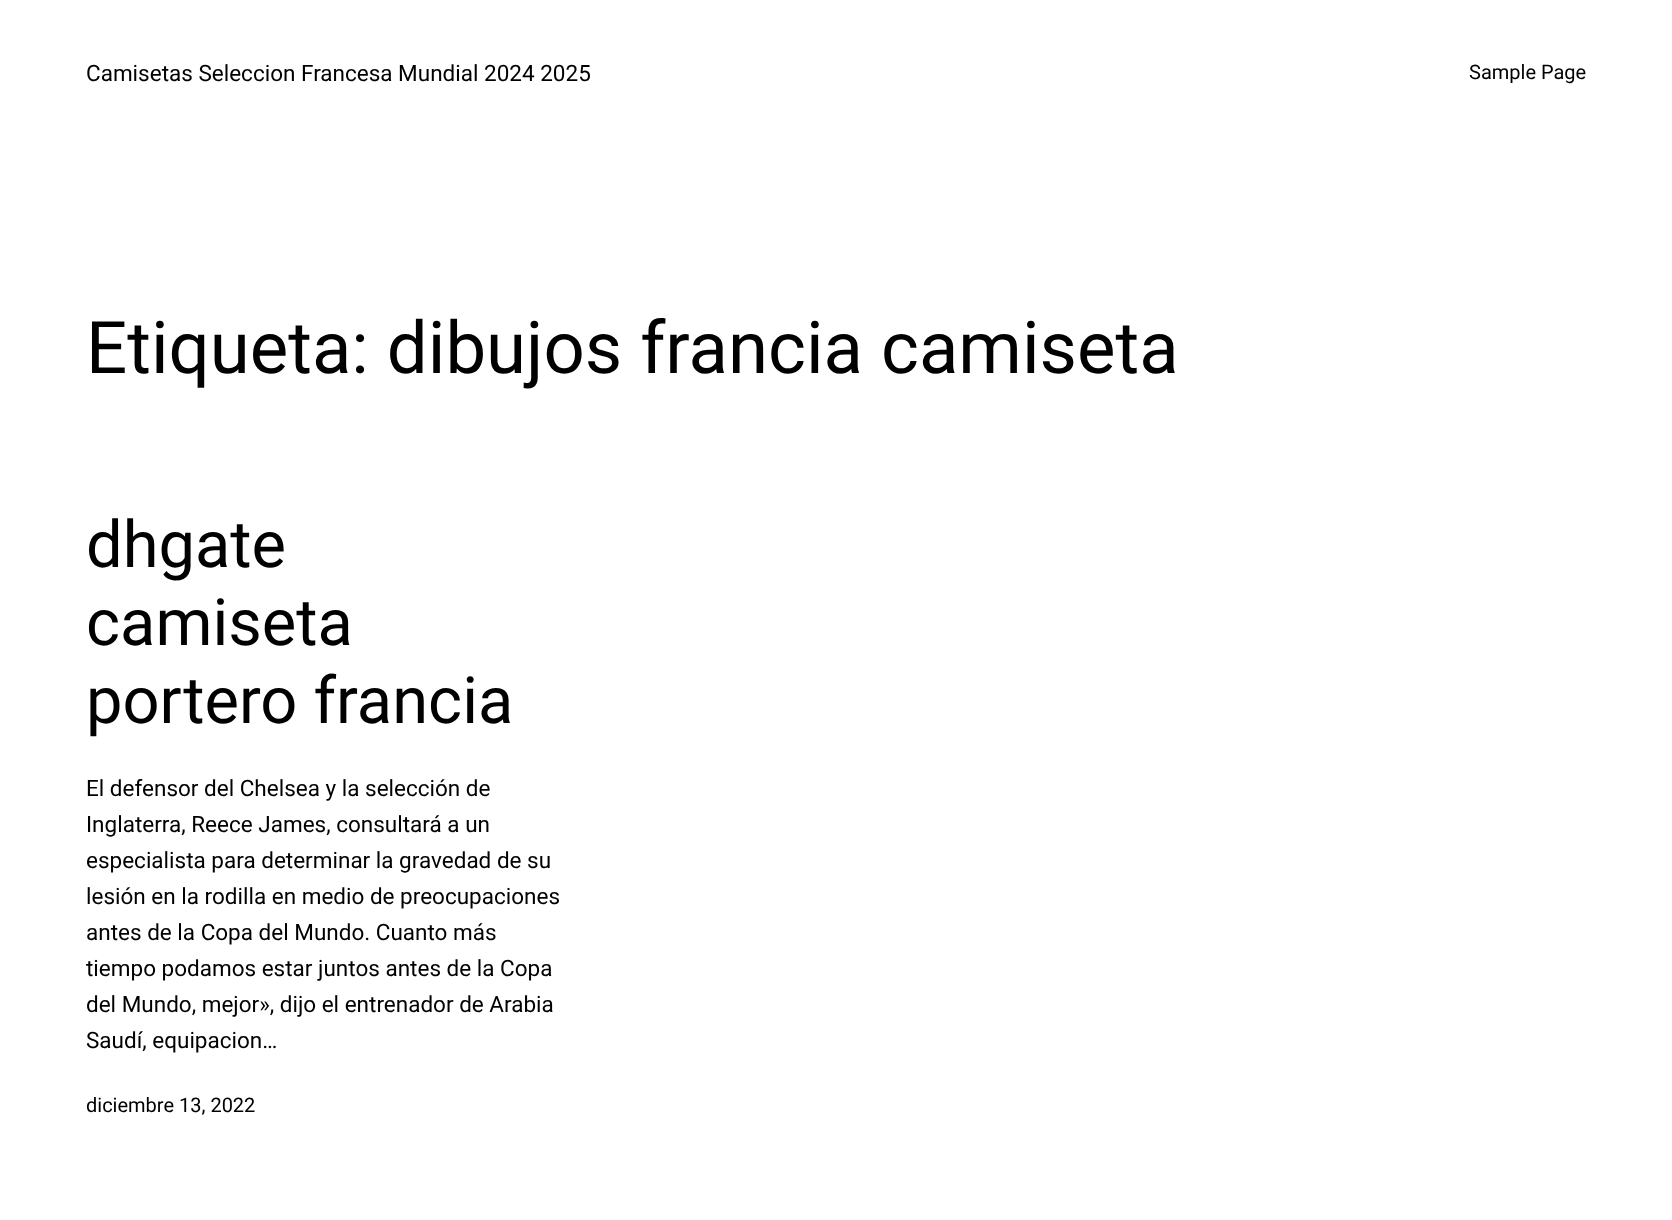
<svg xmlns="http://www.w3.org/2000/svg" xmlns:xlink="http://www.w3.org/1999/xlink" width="1672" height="1220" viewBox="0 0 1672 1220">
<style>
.cls-1{font:22.5px Roboto;fill:#000000}
.cls-2{font:20px Roboto;fill:#000000}
.cls-3{font:72.5px Roboto;fill:#000000}
.cls-4{font:65px Roboto;fill:#000000}
</style>
<rect width="100%" height="100%" fill="#ffffff"/>
<text class="cls-1" x="86" y="81">Camisetas Seleccion Francesa Mundial 2024 2025</text>
<text class="cls-2" x="1469" y="79">Sample Page</text>
<text class="cls-3" x="86" y="373">Etiqueta: dibujos francia camiseta</text>
<text class="cls-4"><tspan x="86" y="567">dhgate</tspan><tspan x="86" y="645">camiseta</tspan><tspan x="86" y="723">portero francia</tspan></text>
<text class="cls-1"><tspan x="86" y="796">El defensor del Chelsea y la selección de</tspan><tspan x="86" y="832">Inglaterra, Reece James, consultará a un</tspan><tspan x="86" y="868">especialista para determinar la gravedad de su</tspan><tspan x="86" y="904">lesión en la rodilla en medio de preocupaciones</tspan><tspan x="86" y="940">antes de la Copa del Mundo. Cuanto más</tspan><tspan x="86" y="976">tiempo podamos estar juntos antes de la Copa</tspan><tspan x="86" y="1012">del Mundo, mejor», dijo el entrenador de Arabia</tspan><tspan x="86" y="1048">Saudí, equipacion…</tspan></text>
<text class="cls-2" x="86" y="1112">diciembre 13, 2022</text>
</svg>
